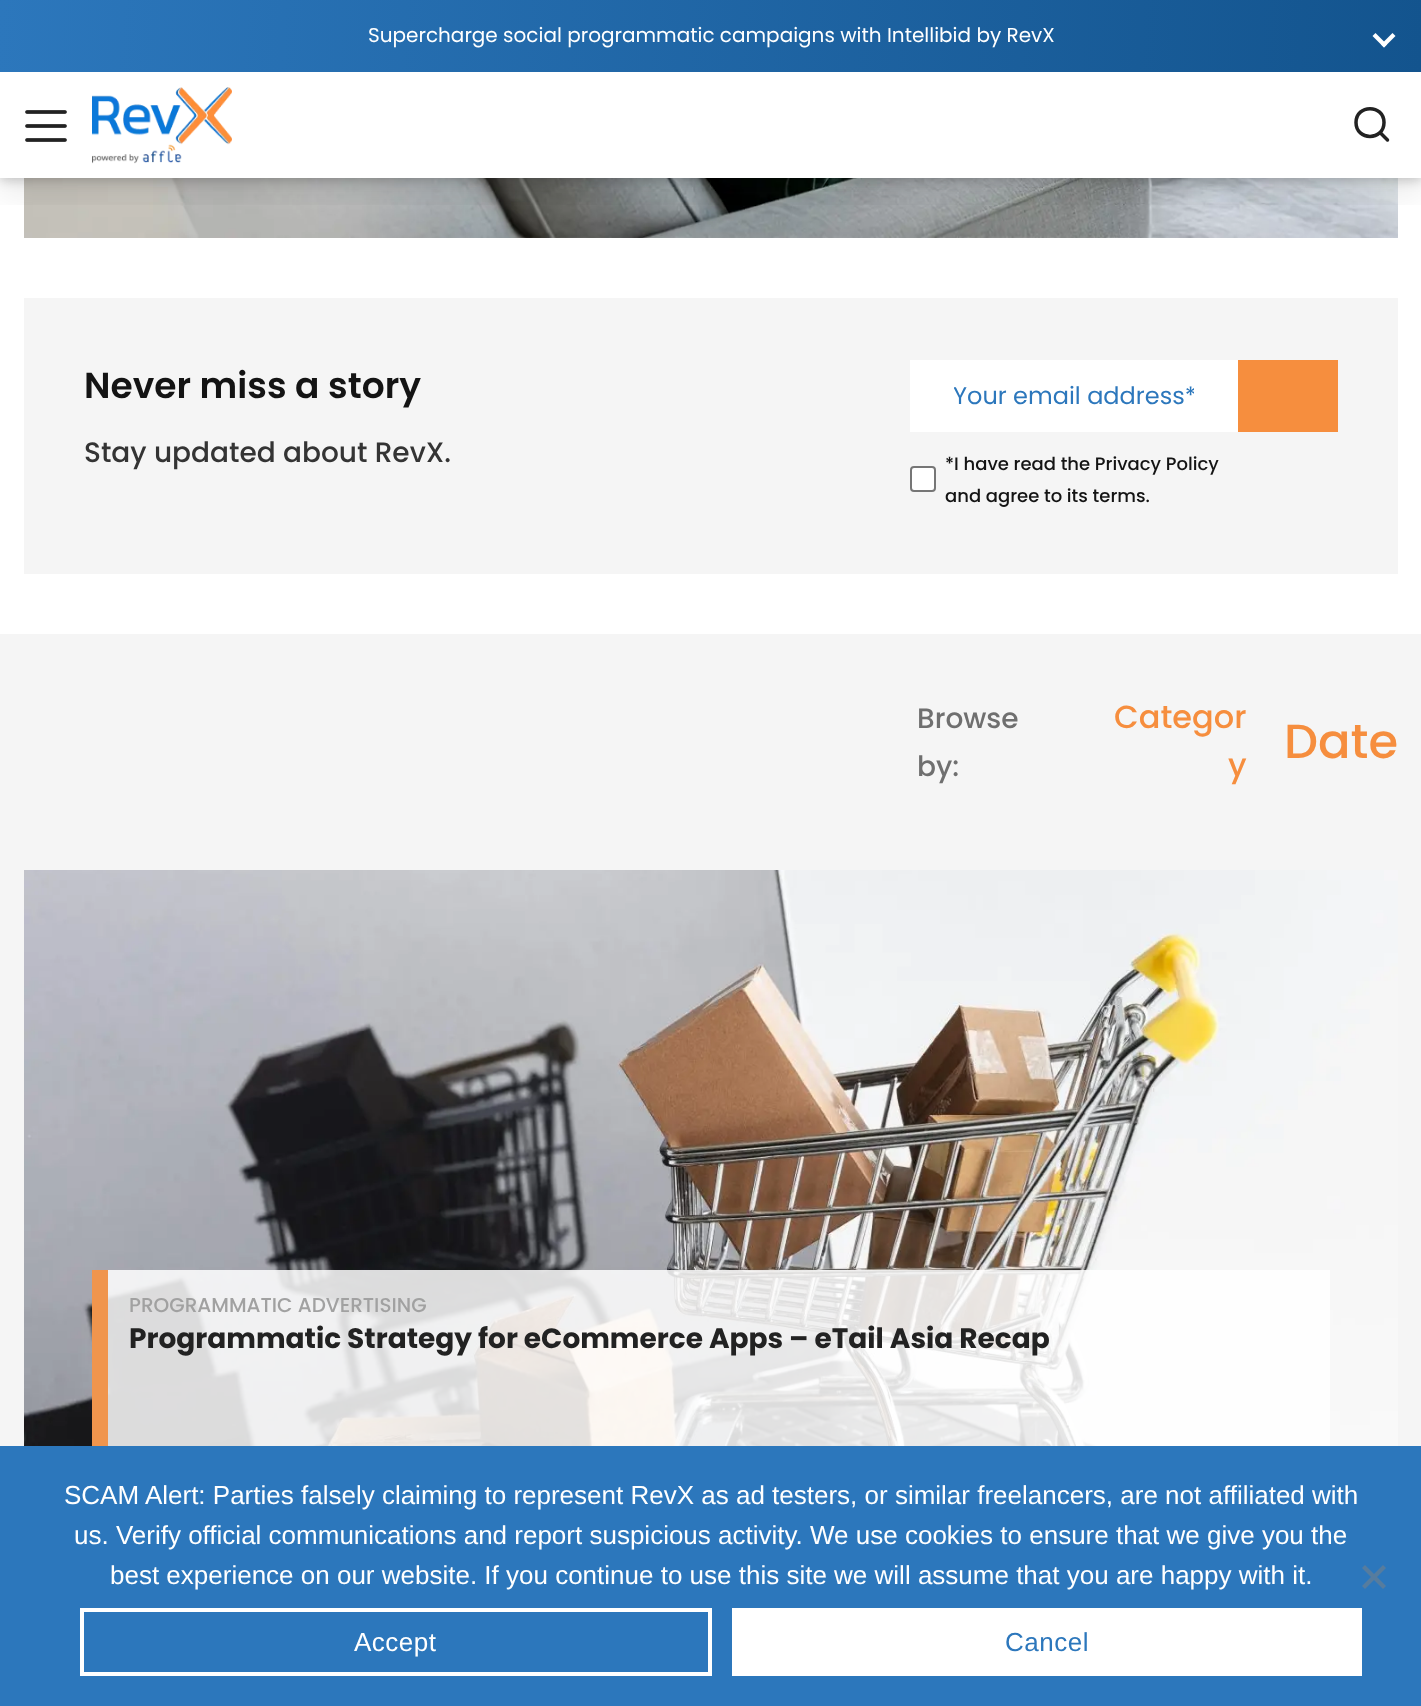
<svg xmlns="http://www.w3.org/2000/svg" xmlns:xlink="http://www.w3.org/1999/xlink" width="1421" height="1706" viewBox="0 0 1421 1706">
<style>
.cls-1{font:20px Poppins;fill:#ffffff}
.cls-2{font:600 36px Poppins;fill:#141414}
.cls-3{font:500 28px Poppins;fill:#343434}
.cls-4{font:24px Poppins;fill:#2c77bc}
.cls-5{font:500 18px Poppins;fill:#141414}
.cls-6{font:500 28px Poppins;fill:#6f6f6f}
.cls-7{font:500 32px Poppins;fill:#f68e3e}
.cls-8{font:500 48px Poppins;fill:#f68e3e}
.cls-9{font:500 20px Poppins;fill:#a1a1a1}
.cls-10{font:bold 28px Poppins;fill:#222222}
.cls-11{font:26px Liberation Sans;fill:#ffffff}
.cls-12{font:26px Liberation Sans;letter-spacing:0.5px;fill:#ffffff}
.cls-13{font:26px Liberation Sans;letter-spacing:0.5px;fill:#2c77bc}
</style>
<defs>
<clipPath id="clip1"><rect x="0" y="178" width="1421" height="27"/></clipPath>
<linearGradient id="g1" gradientUnits="userSpaceOnUse" x1="1" y1="-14" x2="1421" y2="86"><stop offset="0" stop-color="#2c77bc"/><stop offset="1" stop-color="#13548e"/></linearGradient>
<clipPath id="clip2"><rect x="954" y="378" width="240" height="36"/></clipPath>
</defs>
<rect width="100%" height="100%" fill="#ffffff"/>
<image xlink:href="image1.png" x="24" y="178" width="1374" height="60"/>
<rect fill="#000000" fill-opacity="0.2" filter="blur(6px)" x="0" y="2" width="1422" height="178"/>
<rect fill="#ffffff" x="0" y="72" width="1421" height="106"/>
<g clip-path="url(#clip1)">
<rect fill="#000000" fill-opacity="0.09" filter="blur(17px)" x="0" y="86" width="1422" height="106"/>
</g>
<rect fill="url(#g1)" x="0" y="0" width="1421" height="72"/>
<path fill="#ffffff" d="M1392.5 33L1395.5 36L1384 47.5L1381 44.5Z"/>
<path fill="#ffffff" d="M1375.5 33L1387 44.5L1384 47.5L1372.5 36Z"/>
<path fill="none" stroke="#737373" stroke-width="3.5" stroke-linecap="round" d="M27 112H65M27 126H65M27 140H65"/>
<path fill="none" stroke="#222222" stroke-width="3.5" stroke-linecap="round" d="M27 112H65M27 126H65M27 140H65"/>
<image xlink:href="image0.png" x="92" y="87" width="140" height="77"/>
<path fill="none" stroke="#222222" stroke-width="3.5" stroke-linecap="round" stroke-linejoin="round" d="M1384 122.5C1384 141 1356 141 1356 122.5C1356 104 1384 104 1384 122.5ZM1387.5 140L1380 132.5"/>
<rect fill="#f5f5f5" x="24" y="298" width="1374" height="276"/>
<rect fill="#ffffff" x="910" y="360" width="328" height="72"/>
<rect fill="#ffffff" stroke="#767676" stroke-width="2" x="911" y="467" width="24" height="24" rx="3"/>
<rect fill="#f68e3e" x="1238" y="360" width="100" height="72"/>
<rect fill="#f5f5f5" x="0" y="634" width="1421" height="812"/>
<image xlink:href="image2.png" x="24" y="870" width="1374" height="576"/>
<rect fill="#ffffff" fill-opacity="0.85" x="108" y="1270" width="1222" height="176"/>
<rect fill="#f0954d" x="92" y="1270" width="16" height="176"/>
<rect fill="#2c77bc" x="0" y="1446" width="1421" height="260"/>
<path fill="#567c9e" d="M1383 1565L1386 1568L1365 1589L1362 1586Z"/>
<path fill="#567c9e" d="M1362 1568L1365 1565L1386 1586L1383 1589Z"/>
<rect fill="none" stroke="#ffffff" stroke-width="4" x="82" y="1610" width="628" height="64"/>
<rect fill="#ffffff" x="732" y="1608" width="630" height="68"/>
<text class="cls-1" x="368" y="42">Supercharge social programmatic campaigns with Intellibid by RevX</text>
<text class="cls-2" x="84" y="398">Never miss a story</text>
<text class="cls-3" x="84" y="462">Stay updated about RevX.</text>
<g clip-path="url(#clip2)">
<text class="cls-4" x="953" y="404">Your email address*</text>
</g>
<text class="cls-5"><tspan x="945" y="470">*I have read the Privacy Policy</tspan><tspan x="945" y="502">and agree to its terms.</tspan></text>
<text class="cls-6"><tspan x="917" y="728">Browse</tspan><tspan x="917" y="776">by:</tspan></text>
<text class="cls-7" x="1114" y="728">Categor</text>
<text class="cls-7" x="1228" y="776">y</text>
<text class="cls-8" x="1284" y="758">Date</text>
<text class="cls-9" x="129" y="1312">PROGRAMMATIC ADVERTISING</text>
<text class="cls-10" x="129" y="1348">Programmatic Strategy for eCommerce Apps – eTail Asia Recap</text>
<text class="cls-11" x="64" y="1504">SCAM Alert: Parties falsely claiming to represent RevX as ad testers, or similar freelancers, are not affiliated with</text>
<text class="cls-11" x="74" y="1544">us. Verify official communications and report suspicious activity. We use cookies to ensure that we give you the</text>
<text class="cls-11" x="110" y="1584">best experience on our website. If you continue to use this site we will assume that you are happy with it.</text>
<text class="cls-12" x="354" y="1651">Accept</text>
<text class="cls-13" x="1005" y="1651">Cancel</text>
</svg>
